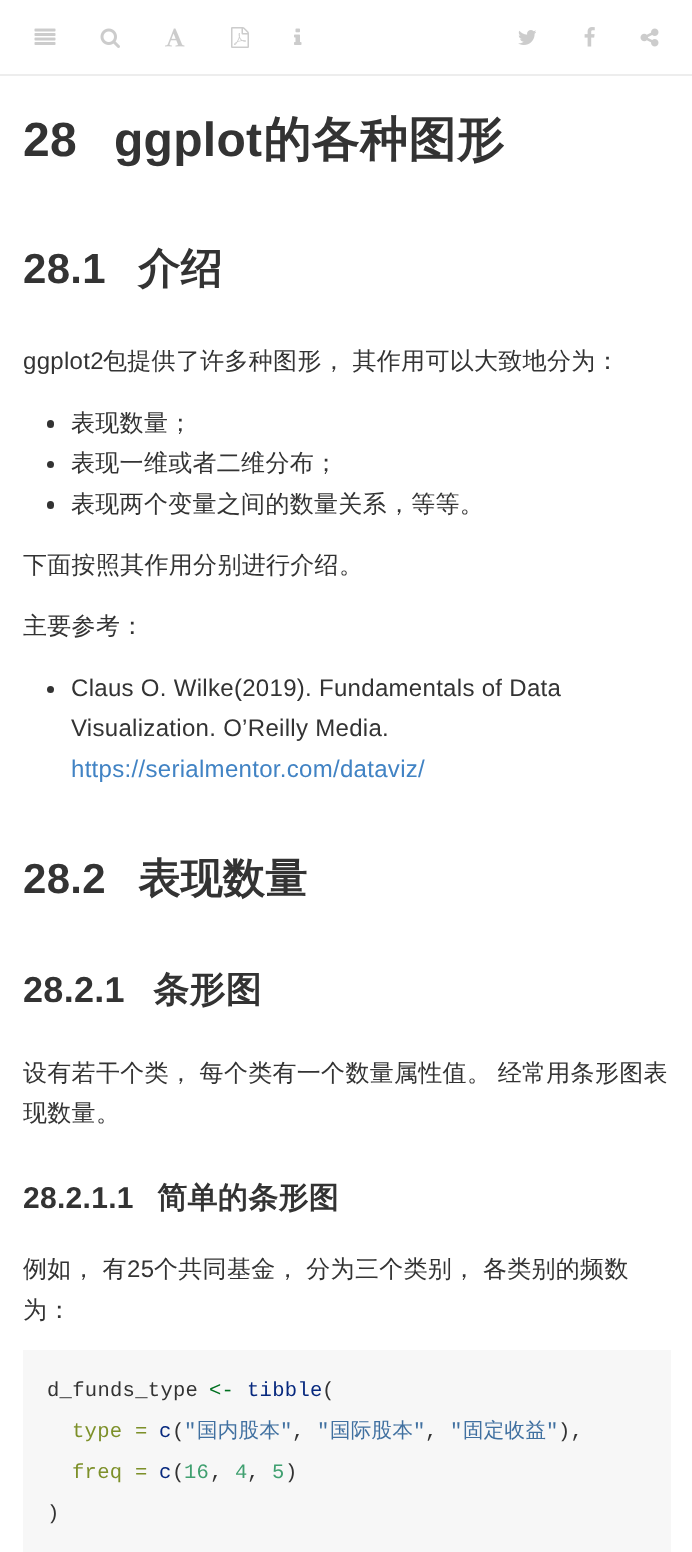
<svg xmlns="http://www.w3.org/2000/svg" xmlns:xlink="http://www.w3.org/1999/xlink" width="692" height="1552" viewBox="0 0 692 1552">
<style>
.cls-1{font:bold 48px Liberation Sans;letter-spacing:0.3px;fill:#333333}
.cls-2{font:bold 48px WenQuanYi Zen Hei;letter-spacing:0.3px;fill:#333333}
.cls-3{font:bold 42px Liberation Sans;letter-spacing:0.3px;fill:#333333}
.cls-4{font:bold 42px WenQuanYi Zen Hei;letter-spacing:0.3px;fill:#333333}
.cls-5{font:24px Liberation Sans;letter-spacing:0.3px;fill:#333333}
.cls-6{font:500 24px WenQuanYi Zen Hei;letter-spacing:0.3px;fill:#333333}
.cls-7{font:24px Liberation Sans;letter-spacing:0.3px;fill:#4183c4}
.cls-8{font:bold 36px Liberation Sans;letter-spacing:0.3px;fill:#333333}
.cls-9{font:bold 36px WenQuanYi Zen Hei;letter-spacing:0.3px;fill:#333333}
.cls-10{font:bold 30px Liberation Sans;letter-spacing:0.3px;fill:#333333}
.cls-11{font:bold 30px WenQuanYi Zen Hei;letter-spacing:0.3px;fill:#333333}
.cls-12{font:20.5px Liberation Mono;letter-spacing:0.3px;fill:#333333}
.cls-13{font:20.5px Liberation Mono;letter-spacing:0.3px;fill:#007020}
.cls-14{font:20.5px Liberation Mono;letter-spacing:0.3px;fill:#06287e}
.cls-15{font:20.5px Liberation Mono;letter-spacing:0.3px;fill:#7d9029}
.cls-16{font:20.5px Liberation Mono;letter-spacing:0.3px;fill:#4070a0}
.cls-17{font:500 20.5px WenQuanYi Zen Hei;letter-spacing:0.3px;fill:#4070a0}
.cls-18{font:20.5px Liberation Mono;letter-spacing:0.3px;fill:#40a070}
</style>
<rect width="100%" height="100%" fill="#ffffff"/>
<rect fill="#ededed" x="0" y="74" width="692" height="2"/>
<image xlink:href="image0.png" x="34" y="28" width="22" height="17"/>
<image xlink:href="image1.png" x="100" y="28" width="20" height="20"/>
<image xlink:href="image2.png" x="165" y="28" width="20" height="19"/>
<image xlink:href="image3.png" x="231" y="27" width="18" height="21"/>
<image xlink:href="image4.png" x="294" y="28" width="8" height="17"/>
<image xlink:href="image5.png" x="518" y="30" width="18" height="15"/>
<image xlink:href="image6.png" x="584" y="27" width="11" height="20"/>
<image xlink:href="image7.png" x="640" y="28" width="19" height="19"/>
<rect fill="#333333" x="47" y="420" width="7" height="8" rx="3.5"/>
<circle fill="#333333" cx="50.5" cy="464.5" r="3.5"/>
<rect fill="#333333" x="47" y="501" width="7" height="8" rx="3.5"/>
<circle fill="#333333" cx="50.5" cy="689.5" r="3.5"/>
<rect fill="#f7f7f7" x="23" y="1350" width="648" height="202"/>
<text class="cls-1" x="23" y="156">28</text>
<text class="cls-1" x="114" y="156">ggplot</text>
<text class="cls-2" x="263" y="156">的各种图形</text>
<text class="cls-3" x="23" y="283">28.1</text>
<text class="cls-4" x="138" y="283">介绍</text>
<text class="cls-5" x="23" y="369">ggplot2</text>
<text class="cls-6" x="103" y="369" word-spacing="-1">包提供了许多种图形， 其作用可以大致地分为：</text>
<text class="cls-6"><tspan x="71" y="431">表现数量；</tspan><tspan x="71" y="471">表现一维或者二维分布；</tspan><tspan x="71" y="512">表现两个变量之间的数量关系，等等。</tspan></text>
<text class="cls-6" x="23" y="573">下面按照其作用分别进行介绍。</text>
<text class="cls-6" x="23" y="634">主要参考：</text>
<text class="cls-5"><tspan x="71" y="696">Claus O. Wilke(2019). Fundamentals of Data</tspan><tspan x="71" y="736">Visualization. O’Reilly Media.</tspan></text>
<text class="cls-7" x="71" y="777">https://serialmentor.com/dataviz/</text>
<text class="cls-3" x="23" y="893">28.2</text>
<text class="cls-4" x="138" y="893">表现数量</text>
<text class="cls-8" x="23" y="1002">28.2.1</text>
<text class="cls-9" x="153" y="1002">条形图</text>
<text class="cls-6"><tspan x="23" y="1081" word-spacing="-1">设有若干个类， 每个类有一个数量属性值。 经常用条形图表</tspan><tspan x="23" y="1121">现数量。</tspan></text>
<text class="cls-10" x="23" y="1208">28.2.1.1</text>
<text class="cls-11" x="157" y="1208">简单的条形图</text>
<text class="cls-6" x="23" y="1277" word-spacing="-1">例如， 有</text>
<text class="cls-5" x="127" y="1277">25</text>
<text class="cls-6" x="154" y="1277" word-spacing="-1">个共同基金， 分为三个类别， 各类别的频数</text>
<text class="cls-6" x="23" y="1318">为：</text>
<text class="cls-12" x="47" y="1396">d_funds_type</text>
<text class="cls-13" x="209" y="1396">&lt;-</text>
<text class="cls-14" x="247" y="1396">tibble</text>
<text class="cls-12" x="322" y="1396">(</text>
<text class="cls-15" x="72" y="1437">type =</text>
<text class="cls-14" x="159" y="1437">c</text>
<text class="cls-12" x="172" y="1437">(</text>
<text class="cls-16" x="184" y="1437">"</text>
<text class="cls-17" x="197" y="1437">国内股本</text>
<text class="cls-16" x="280" y="1437">"</text>
<text class="cls-12" x="292" y="1437">,</text>
<text class="cls-16" x="317" y="1437">"</text>
<text class="cls-17" x="330" y="1437">国际股本</text>
<text class="cls-16" x="413" y="1437">"</text>
<text class="cls-12" x="425" y="1437">,</text>
<text class="cls-16" x="450" y="1437">"</text>
<text class="cls-17" x="463" y="1437">固定收益</text>
<text class="cls-16" x="546" y="1437">"</text>
<text class="cls-12" x="558" y="1437">),</text>
<text class="cls-15" x="72" y="1478">freq =</text>
<text class="cls-14" x="159" y="1478">c</text>
<text class="cls-12" x="172" y="1478">(</text>
<text class="cls-18" x="184" y="1478">16</text>
<text class="cls-12" x="210" y="1478">,</text>
<text class="cls-18" x="235" y="1478">4</text>
<text class="cls-12" x="247" y="1478">,</text>
<text class="cls-18" x="272" y="1478">5</text>
<text class="cls-12" x="285" y="1478">)</text>
<text class="cls-12" x="47" y="1519">)</text>
</svg>
